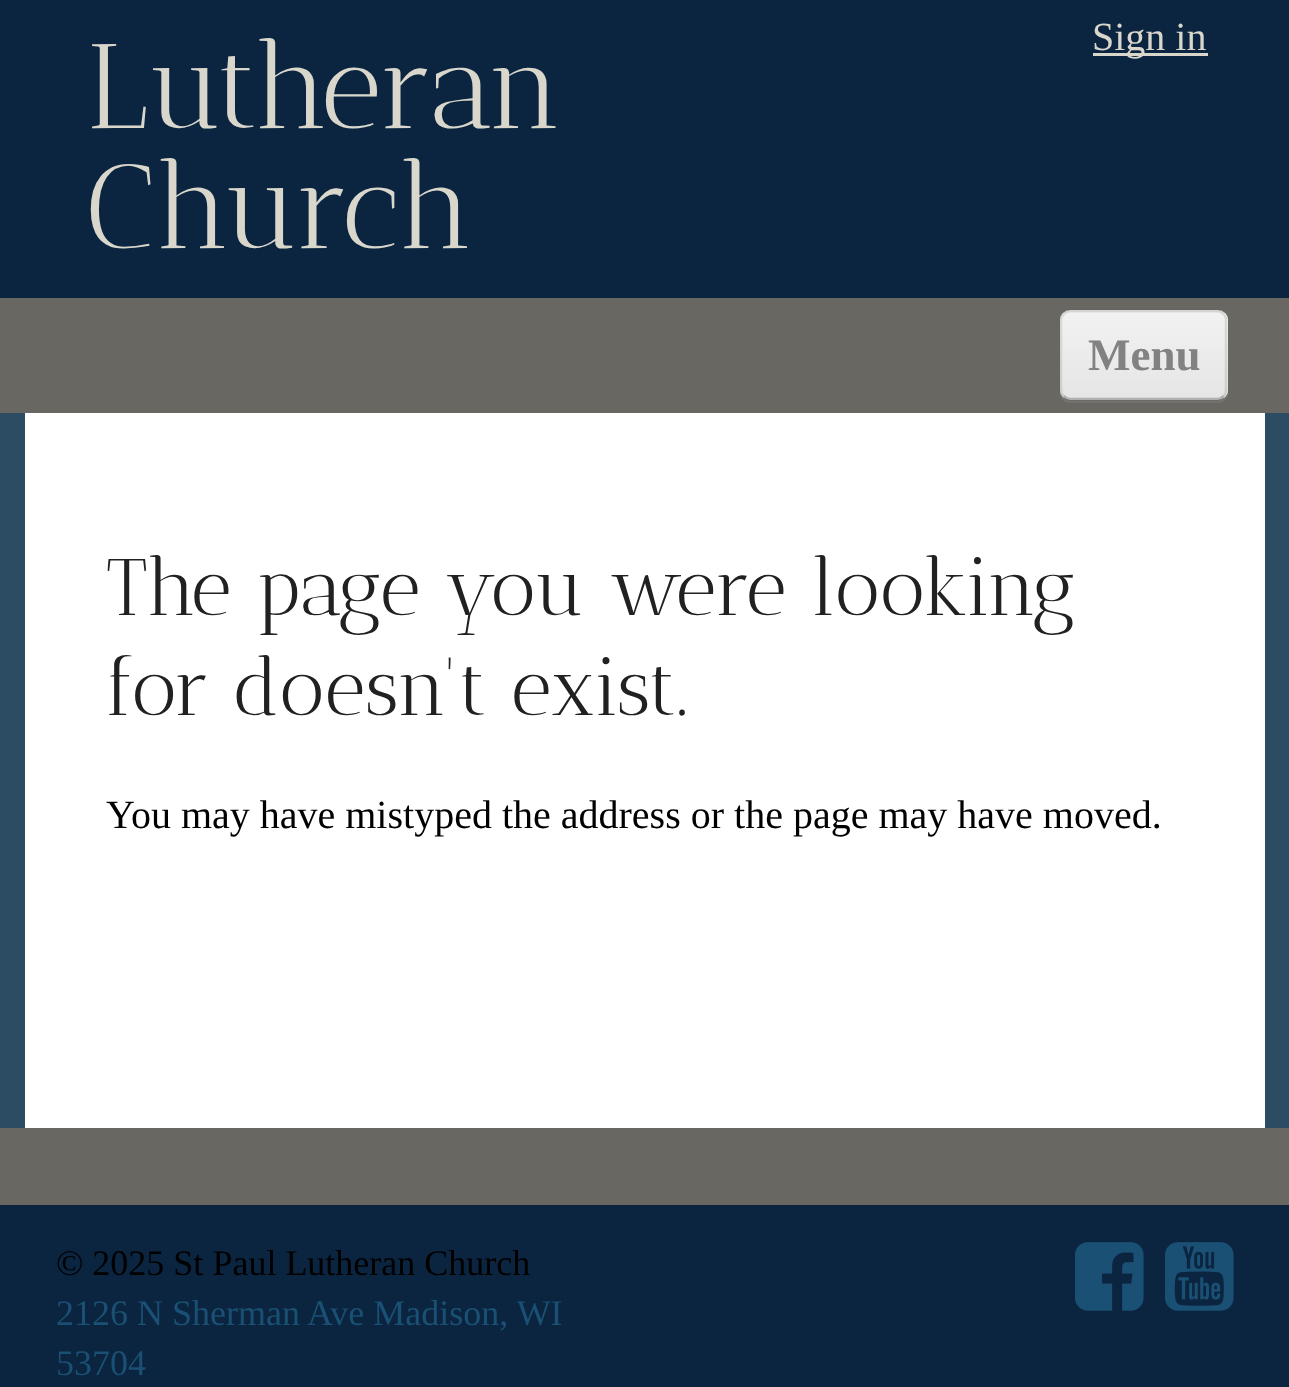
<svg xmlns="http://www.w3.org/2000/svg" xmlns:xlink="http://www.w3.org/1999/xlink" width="1289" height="1387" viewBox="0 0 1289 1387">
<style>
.cls-1{font:120px Antic Didone;fill:#d9d6cc}
.cls-2{font:40px Liberation Serif;fill:#d9d6cc}
.cls-3{font:bold 45px Liberation Serif;fill:#828282}
.cls-4{font:80px Antic Didone;fill:#212121}
.cls-5{font:40px Liberation Serif;fill:#000000}
.cls-6{font:36px Liberation Serif;fill:#000000}
.cls-7{font:36px Liberation Serif;fill:#195073}
</style>
<defs>
<clipPath id="clip1"><rect x="1060" y="310" width="168" height="90" rx="10"/></clipPath>
<linearGradient id="g1" gradientUnits="userSpaceOnUse" x1="1144" y1="313" x2="1144" y2="398"><stop offset="0" stop-color="#f2f2f2"/><stop offset="1" stop-color="#e5e5e5"/></linearGradient>
</defs>
<rect width="100%" height="100%" fill="#0b2540"/>
<rect fill="#d9d6cc" x="1093" y="53" width="115" height="3"/>
<rect fill="#696762" x="0" y="298" width="1289" height="115"/>
<path fill="#74726e" d="M1060 390V393C1060 399 1064 403 1070 403H1218C1224 403 1228 399 1228 393V323L1227 320L1228 390C1228 396 1223 400 1218 400H1070C1064 400 1060 396 1060 390Z"/>
<rect fill="#ededed" x="1060" y="310" width="168" height="90" rx="10"/>
<g clip-path="url(#clip1)">
<rect fill="url(#g1)" x="1060" y="313" width="168" height="85"/>
</g>
<path fill="none" stroke="#000000" stroke-opacity="0.25" stroke-width="2.5" d="M1223.5 396C1222 398 1220 399 1217.5 399H1070C1067.5 399 1065.5 398 1064 396"/>
<path fill="none" stroke="#000000" stroke-opacity="0.1" stroke-width="2.5" d="M1064 396C1062 394.5 1061 392.5 1061 390V320C1061 317.5 1062 315.5 1064 314C1065.5 312 1067.5 311 1070 311H1217.5C1220 311 1222 312 1223.5 314C1225.5 315.5 1226 317.5 1226 320V390C1226 392.5 1225.5 394.5 1223.5 396"/>
<rect fill="#2b4c63" x="0" y="413" width="1289" height="715"/>
<rect fill="#ffffff" x="25" y="413" width="1240" height="715"/>
<rect fill="#696762" x="0" y="1128" width="1289" height="77"/>
<image xlink:href="image0.png" x="1075" y="1242" width="69" height="69"/>
<image xlink:href="image1.png" x="1165" y="1242" width="69" height="69"/>
<text class="cls-1"><tspan x="86" y="128">Lutheran</tspan><tspan x="86" y="248">Church</tspan></text>
<text class="cls-2" x="1092" y="50">Sign in</text>
<text class="cls-3" x="1088" y="370">Menu</text>
<text class="cls-4"><tspan x="106" y="615">The page you were looking</tspan><tspan x="106" y="715">for doesn't exist.</tspan></text>
<text class="cls-5" x="106" y="828">You may have mistyped the address or the page may have moved.</text>
<text class="cls-6" x="56" y="1275">© 2025 St Paul Lutheran Church</text>
<text class="cls-7"><tspan x="56" y="1325">2126 N Sherman Ave Madison, WI</tspan><tspan x="56" y="1375">53704</tspan></text>
</svg>
